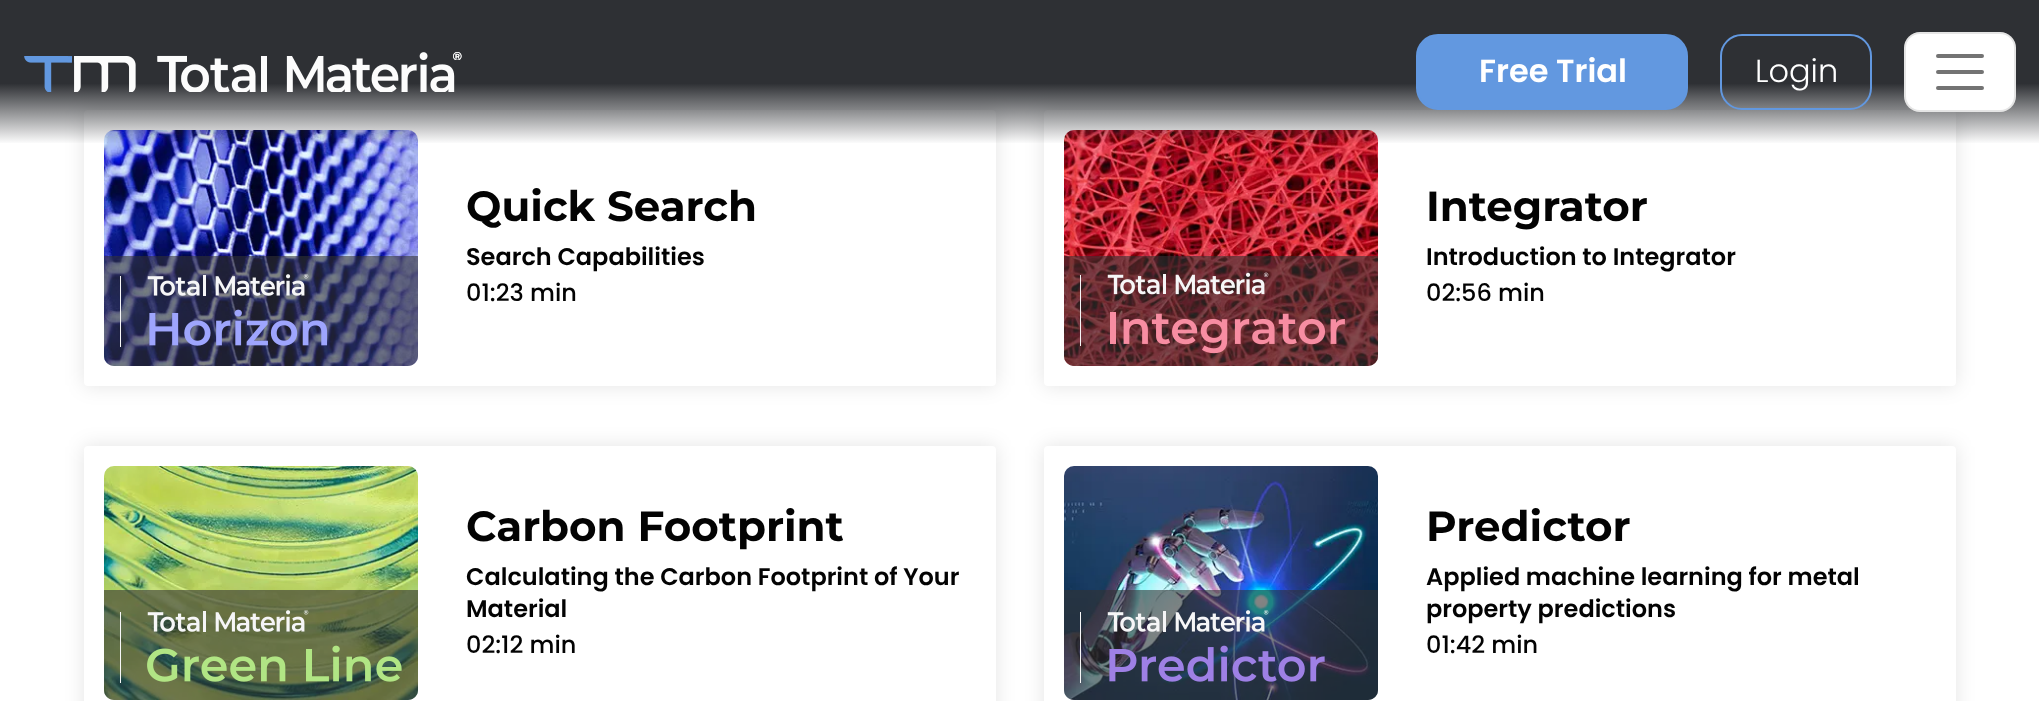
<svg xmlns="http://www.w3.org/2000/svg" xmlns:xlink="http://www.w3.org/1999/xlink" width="2039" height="701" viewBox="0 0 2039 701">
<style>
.cls-1{font:600 32px Poppins;fill:#ffffff}
.cls-2{font:300 32px Poppins;fill:#ffffff}
.cls-3{font:bold 42px Montserrat;fill:#030303}
.cls-4{font:600 24px Poppins;fill:#030303}
.cls-5{font:500 24px Poppins;fill:#030303}
</style>
<defs>
<linearGradient id="g1" gradientUnits="userSpaceOnUse" x1="1020" y1="144" x2="1020" y2="0"><stop offset="0" stop-color="#2e3034" stop-opacity="0"/><stop offset="0.42" stop-color="#2e3034"/><stop offset="1" stop-color="#2e3034"/></linearGradient>
</defs>
<rect width="100%" height="100%" fill="#ffffff"/>
<rect fill="#000000" fill-opacity="0.11" filter="blur(10px)" x="84" y="110" width="912" height="276" rx="4"/>
<rect fill="#ffffff" x="84" y="110" width="912" height="276" rx="4"/>
<rect fill="#f8f8f9" x="104" y="130" width="314" height="236" rx="10"/>
<image xlink:href="image1.png" x="104" y="130" width="314" height="236"/>
<rect fill="#000000" fill-opacity="0.11" filter="blur(10px)" x="1044" y="110" width="912" height="276" rx="4"/>
<rect fill="#ffffff" x="1044" y="110" width="912" height="276" rx="4"/>
<rect fill="#f8f8f9" x="1064" y="130" width="314" height="236" rx="10"/>
<image xlink:href="image3.png" x="1064" y="130" width="314" height="236"/>
<rect fill="url(#g1)" x="0" y="0" width="2039" height="143"/>
<image xlink:href="image0.png" x="24" y="52" width="438" height="40"/>
<rect fill="#6298e0" stroke="#6298e0" stroke-width="2" x="1417" y="35" width="270" height="74" rx="21"/>
<rect fill="none" stroke="#6298e0" stroke-width="2" x="1721" y="35" width="150" height="74" rx="21"/>
<rect fill="#ffffff" x="1904" y="32" width="112" height="80" rx="16"/>
<rect fill="none" stroke="#000000" stroke-opacity="0.1" stroke-width="2" x="1905" y="33" width="110" height="78" rx="15"/>
<path fill="none" stroke="#737373" stroke-width="4" stroke-linecap="round" d="M1938 56H1982M1938 72H1982M1938 88H1982"/>
<path fill="#323232" fill-opacity="0.6" d="M104 256H418V356C418 361.5 413.5 366 408 366H114C108.5 366 104 361.5 104 356Z"/>
<image xlink:href="image2.png" x="120" y="274" width="208" height="73"/>
<path fill="#323232" fill-opacity="0.6" d="M1064 256H1378V356C1378 361.5 1373.5 366 1368 366H1074C1068.5 366 1064 361.5 1064 356Z"/>
<image xlink:href="image4.png" x="1080" y="272" width="265" height="82"/>
<rect fill="#000000" fill-opacity="0.11" filter="blur(10px)" x="84" y="446" width="912" height="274" rx="4"/>
<rect fill="#ffffff" x="84" y="446" width="912" height="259" rx="4"/>
<rect fill="#f8f8f9" x="104" y="466" width="314" height="234" rx="10"/>
<image xlink:href="image5.png" x="104" y="466" width="314" height="234"/>
<path fill="#323232" fill-opacity="0.6" d="M104 590H418V690C418 695.5 413.5 700 408 700H114C108.5 700 104 695.5 104 690Z"/>
<image xlink:href="image6.png" x="120" y="610" width="282" height="73"/>
<rect fill="#000000" fill-opacity="0.11" filter="blur(10px)" x="1044" y="446" width="912" height="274" rx="4"/>
<rect fill="#ffffff" x="1044" y="446" width="912" height="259" rx="4"/>
<rect fill="#f8f8f9" x="1064" y="466" width="314" height="234" rx="10"/>
<image xlink:href="image7.png" x="1064" y="466" width="314" height="234"/>
<path fill="#323232" fill-opacity="0.6" d="M1064 590H1378V690C1378 695.5 1373.5 700 1368 700H1074C1068.5 700 1064 695.5 1064 690Z"/>
<image xlink:href="image8.png" x="1080" y="610" width="245" height="73"/>
<text class="cls-1" x="1479" y="82">Free Trial</text>
<text class="cls-2" x="1755" y="82">Login</text>
<text class="cls-3" x="466" y="221">Quick Search</text>
<text class="cls-4" x="466" y="265">Search Capabilities</text>
<text class="cls-5" x="466" y="301">01:23 min</text>
<text class="cls-3" x="1426" y="221">Integrator</text>
<text class="cls-4" x="1426" y="265">Introduction to Integrator</text>
<text class="cls-5" x="1426" y="301">02:56 min</text>
<text class="cls-3" x="466" y="541">Carbon Footprint</text>
<text class="cls-4"><tspan x="466" y="585">Calculating the Carbon Footprint of Your</tspan><tspan x="466" y="617">Material</tspan></text>
<text class="cls-5" x="466" y="653">02:12 min</text>
<text class="cls-3" x="1426" y="541">Predictor</text>
<text class="cls-4"><tspan x="1426" y="585">Applied machine learning for metal</tspan><tspan x="1426" y="617">property predictions</tspan></text>
<text class="cls-5" x="1426" y="653">01:42 min</text>
</svg>
